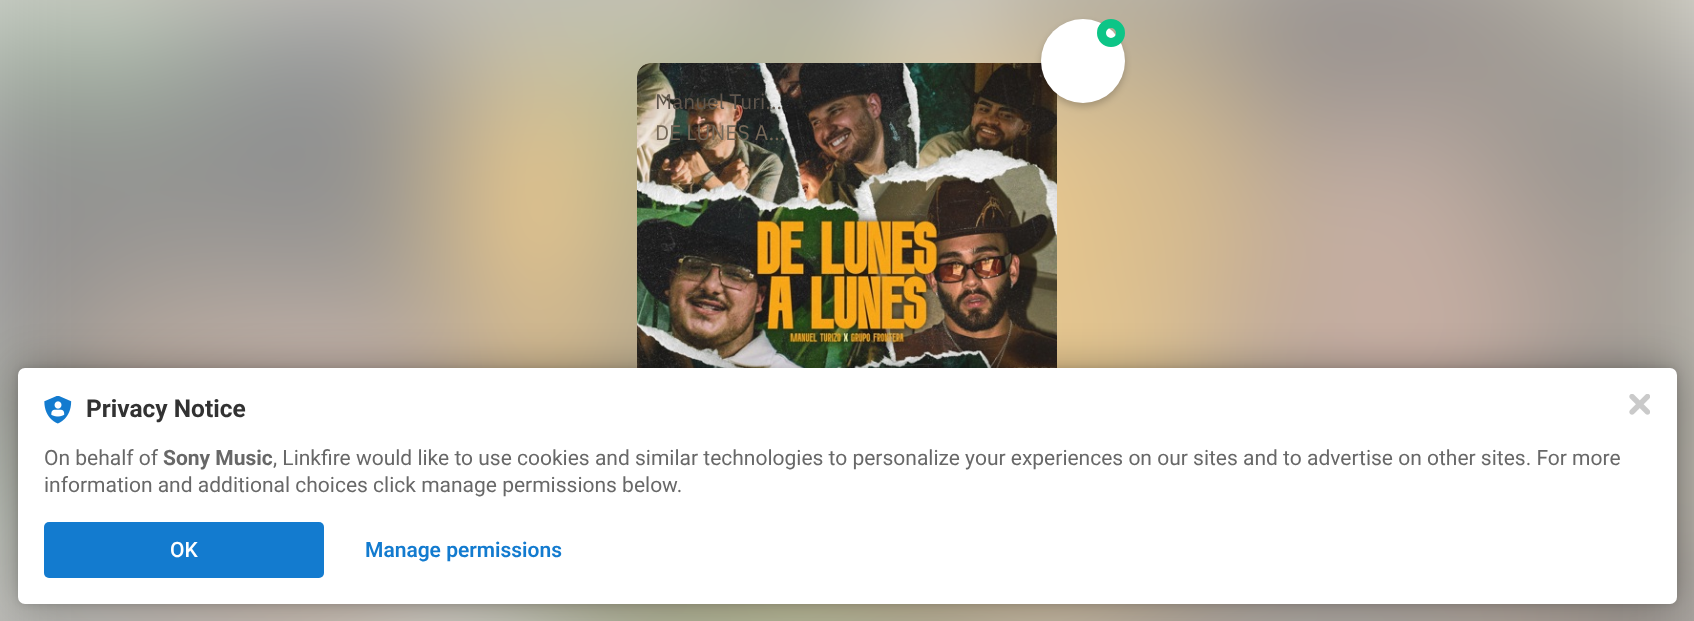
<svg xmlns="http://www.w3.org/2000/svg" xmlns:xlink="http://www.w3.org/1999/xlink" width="1694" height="621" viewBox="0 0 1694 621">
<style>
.cls-1{font:21px IBM Plex Sans;fill:#60574e}
.cls-2{font:21px IBM Plex Sans;fill:#756859}
.cls-3{font:bold 24.5px Roboto;fill:#323232}
.cls-4{font:21px Roboto;fill:#686868}
.cls-5{font:bold 21px Roboto;fill:#686868}
.cls-6{font:500 21px Roboto;fill:#ffffff}
.cls-7{font:600 21px Roboto;fill:#137bcf}
</style>
<rect width="100%" height="100%" fill="#ffffff"/>
<image xlink:href="image0.png" x="0" y="0" width="1694" height="621"/>
<image xlink:href="image1.png" x="637" y="63" width="420" height="305"/>
<rect fill="#000000" fill-opacity="0.2" filter="blur(3.5px)" x="1041" y="23" width="84" height="84" rx="42"/>
<circle fill="#ffffff" cx="1083" cy="61" r="42"/>
<circle fill="none" stroke="#0dc587" stroke-width="9" cx="1111" cy="33" r="9.5"/>
<rect fill="#000000" fill-opacity="0.12" filter="blur(3.5px)" x="18" y="368" width="1659" height="236" rx="7"/>
<rect fill="#000000" fill-opacity="0.3" filter="blur(21px)" x="18" y="368" width="1659" height="236" rx="7"/>
<rect fill="#ffffff" x="18" y="368" width="1659" height="236" rx="7"/>
<image xlink:href="image2.png" x="44" y="396" width="28" height="28"/>
<rect fill="#137bcf" x="44" y="522" width="280" height="56" rx="5"/>
<image xlink:href="image3.png" x="1629" y="394" width="21" height="21"/>
<text class="cls-1" x="655" y="109">Manuel Turi…</text>
<text class="cls-2" x="655" y="140">DE LUNES A…</text>
<text class="cls-3" x="86" y="417">Privacy Notice</text>
<text class="cls-4" x="44" y="465">On behalf of</text>
<text class="cls-5" x="163" y="465">Sony Music</text>
<text class="cls-4" x="273" y="465">, Linkfire would like to use cookies and similar technologies to personalize your experiences on our sites and to advertise on other sites. For more</text>
<text class="cls-4" x="44" y="492">information and additional choices click manage permissions below.</text>
<text class="cls-6" x="170" y="557">OK</text>
<text class="cls-7" x="365" y="557">Manage permissions</text>
</svg>
